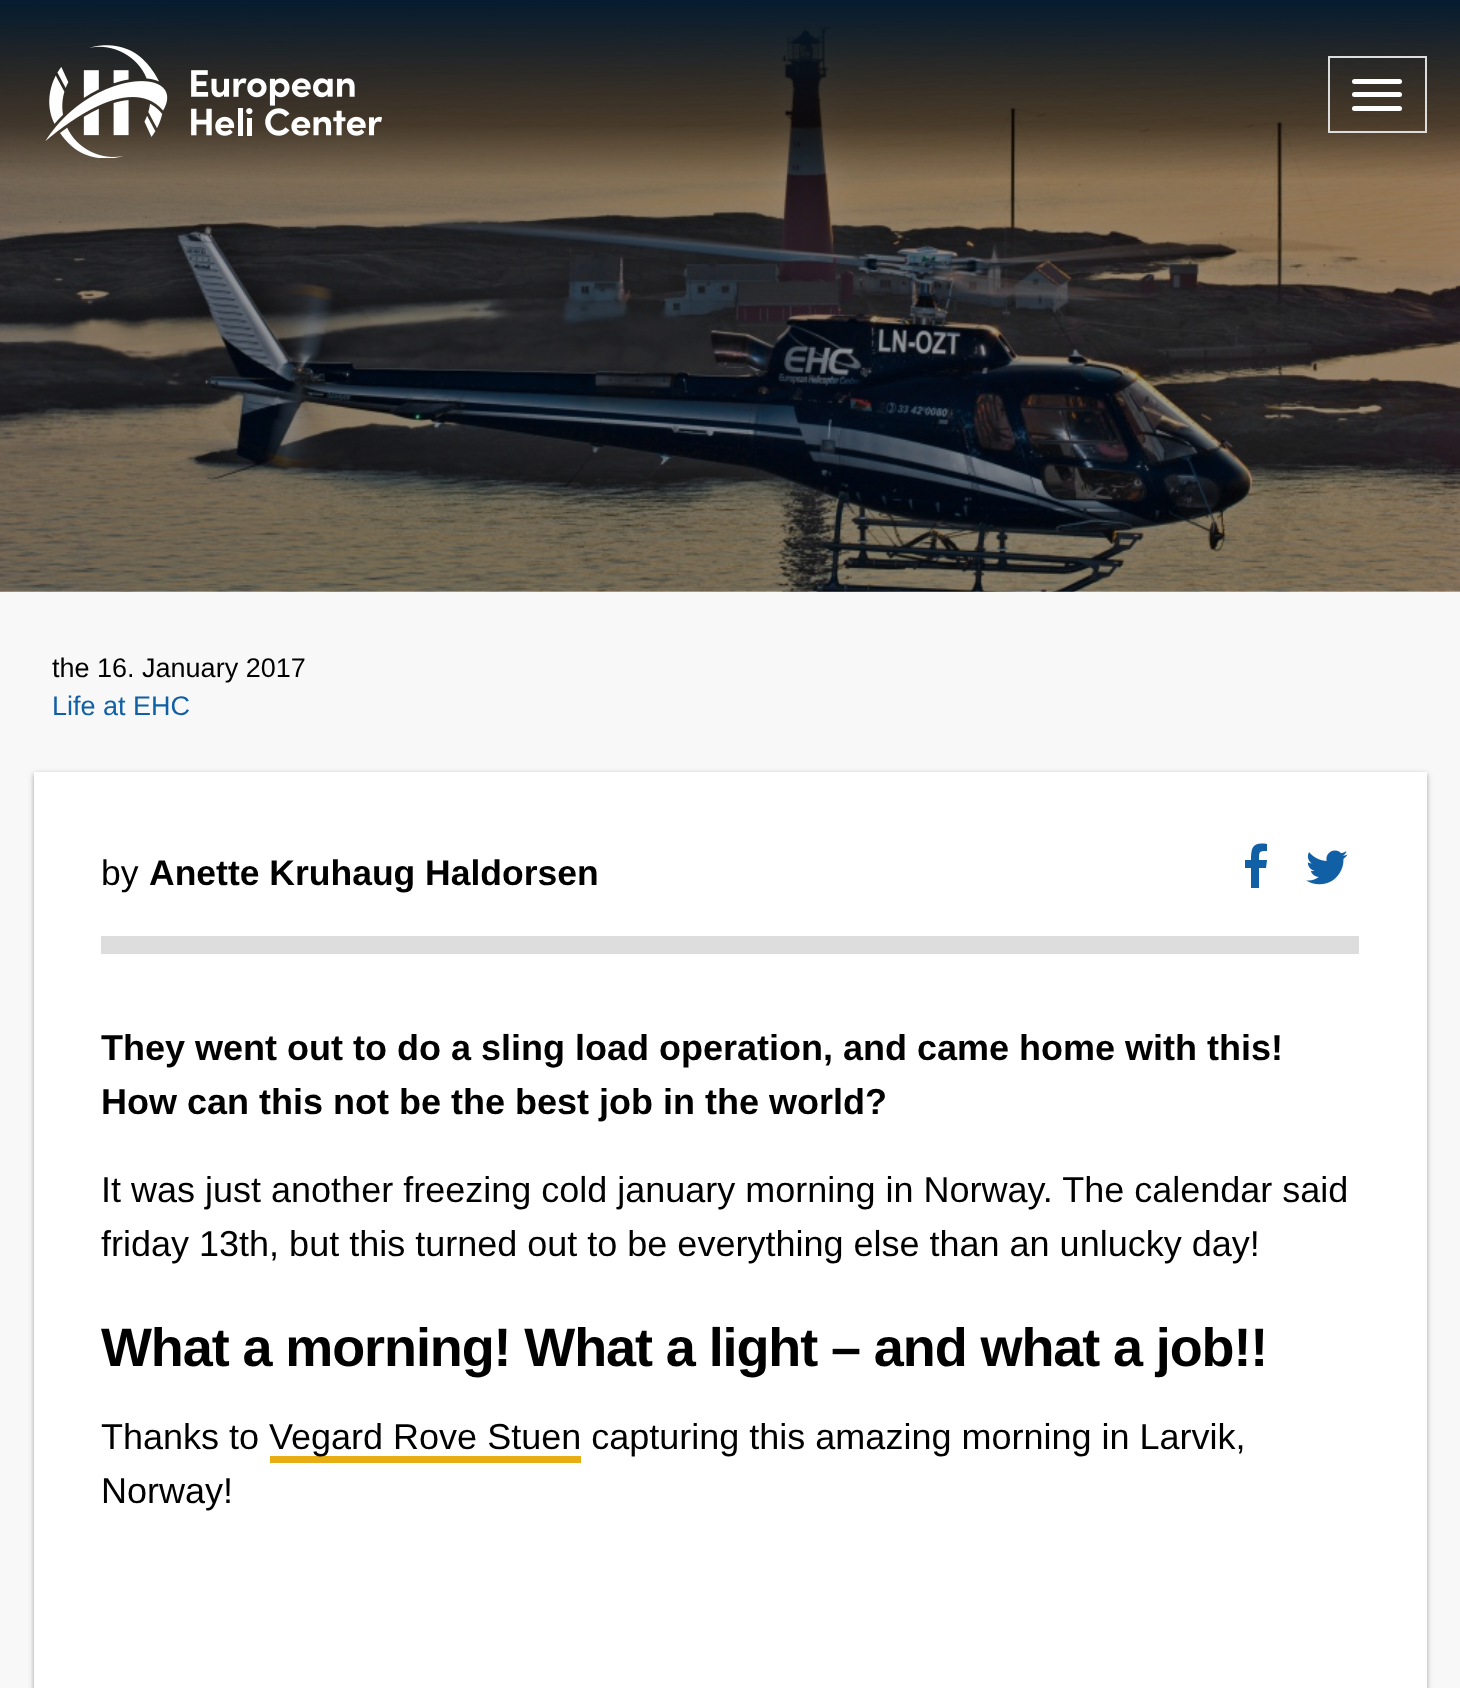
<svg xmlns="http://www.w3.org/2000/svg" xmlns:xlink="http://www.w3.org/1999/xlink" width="1460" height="1688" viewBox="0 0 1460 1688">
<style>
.cls-1{font:27px Liberation Sans;fill:#000000}
.cls-2{font:27px Liberation Sans;fill:#115fa5}
.cls-3{font:35.5px Liberation Sans;fill:#000000}
.cls-4{font:bold 35.5px Liberation Sans;fill:#000000}
.cls-5{font:bold 36px Liberation Sans;fill:#000000}
.cls-6{font:36px Liberation Sans;fill:#000000}
.cls-7{font:bold 54px Liberation Sans;letter-spacing:-1.1px;fill:#000000}
</style>
<rect width="100%" height="100%" fill="#f8f8f8"/>
<image xlink:href="image1.png" x="0" y="0" width="1460" height="592"/>
<image xlink:href="image0.png" x="45" y="45" width="337" height="113"/>
<rect fill="none" stroke="#dddddd" stroke-width="2" x="1329" y="57" width="97" height="75"/>
<rect fill="#ffffff" x="1352" y="79" width="50" height="5" rx="2.5"/>
<rect fill="#ffffff" x="1352" y="92" width="50" height="5" rx="2.5"/>
<rect fill="#ffffff" x="1352" y="106" width="50" height="5" rx="2.5"/>
<rect fill="#000000" fill-opacity="0.24" filter="blur(2px)" x="34" y="774" width="1393" height="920"/>
<rect fill="#000000" fill-opacity="0.12" filter="blur(3.5px)" x="34" y="774" width="1393" height="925"/>
<rect fill="#ffffff" x="34" y="772" width="1393" height="916"/>
<rect fill="#dddddd" x="101" y="936" width="1258" height="18"/>
<path fill="#115fa5" d="M1267 844V851C1259 851 1259 851 1259 860H1267L1266 868H1259V888H1251V868H1245V860H1251C1251 847 1253 842 1267 844Z"/>
<image xlink:href="image2.png" x="1306" y="850" width="42" height="35"/>
<rect fill="#e7ad12" x="270" y="1456" width="311" height="7"/>
<text class="cls-1" x="52" y="677">the 16. January 2017</text>
<text class="cls-2" x="52" y="715">Life at EHC</text>
<text class="cls-3" x="101" y="885">by</text>
<text class="cls-4" x="149" y="885">Anette Kruhaug Haldorsen</text>
<text class="cls-5"><tspan x="101" y="1060">They went out to do a sling load operation, and came home with this!</tspan><tspan x="101" y="1114">How can this not be the best job in the world?</tspan></text>
<text class="cls-6"><tspan x="101" y="1202">It was just another freezing cold january morning in Norway. The calendar said</tspan><tspan x="101" y="1256">friday 13th, but this turned out to be everything else than an unlucky day!</tspan></text>
<text class="cls-7" x="101" y="1366">What a morning! What a light – and what a job!!</text>
<text class="cls-6" x="101" y="1449">Thanks to</text>
<text class="cls-6" x="269" y="1449">Vegard Rove Stuen capturing this amazing morning in Larvik,</text>
<text class="cls-6" x="101" y="1503">Norway!</text>
</svg>
